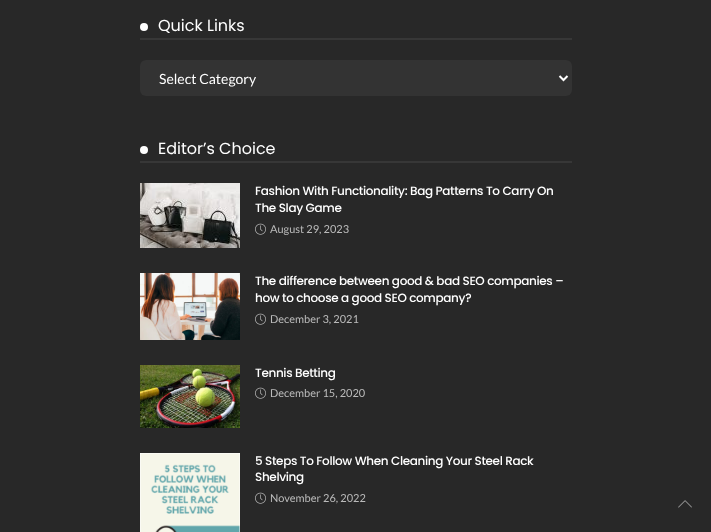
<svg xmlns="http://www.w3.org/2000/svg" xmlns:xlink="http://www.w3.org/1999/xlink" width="711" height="532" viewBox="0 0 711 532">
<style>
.cls-1{font:16px Poppins;fill:#ffffff}
.cls-2{font:14px Lato;fill:#ffffff}
.cls-3{font:500 12px Poppins;letter-spacing:-0.35px;fill:#ffffff}
.cls-4{font:11px Lato;fill:#bbbbbb}
</style>
<rect width="100%" height="100%" fill="#282828"/>
<rect fill="#373737" x="140" y="38" width="432" height="2"/>
<circle fill="#ffffff" cx="144" cy="27" r="4"/>
<rect fill="#333333" x="140" y="60" width="432" height="36" rx="6"/>
<path fill="none" stroke="#ffffff" stroke-width="2" d="M559.5 76L563.5 80L567.5 76"/>
<rect fill="#373737" x="140" y="161" width="432" height="2"/>
<circle fill="#ffffff" cx="144" cy="150" r="4"/>
<image xlink:href="image0.png" x="140" y="183" width="100" height="65"/>
<image xlink:href="image1.png" x="255" y="223" width="11" height="12"/>
<image xlink:href="image2.png" x="140" y="273" width="100" height="67"/>
<image xlink:href="image1.png" x="255" y="313" width="11" height="12"/>
<image xlink:href="image3.png" x="140" y="365" width="100" height="63"/>
<image xlink:href="image1.png" x="255" y="387" width="11" height="12"/>
<image xlink:href="image4.png" x="140" y="453" width="100" height="79"/>
<image xlink:href="image1.png" x="255" y="492" width="11" height="12"/>
<image xlink:href="image5.png" x="678" y="500" width="14" height="8"/>
<text class="cls-1" x="158" y="31">Quick Links</text>
<text class="cls-2" x="159" y="84">Select Category</text>
<text class="cls-1" x="158" y="154">Editor’s Choice</text>
<text class="cls-3"><tspan x="255" y="195">Fashion With Functionality: Bag Patterns To Carry On</tspan><tspan x="255" y="212">The Slay Game</tspan></text>
<text class="cls-4" x="270" y="233">August 29, 2023</text>
<text class="cls-3"><tspan x="255" y="285">The difference between good &amp; bad SEO companies –</tspan><tspan x="255" y="302">how to choose a good SEO company?</tspan></text>
<text class="cls-4" x="270" y="323">December 3, 2021</text>
<text class="cls-3" x="255" y="377">Tennis Betting</text>
<text class="cls-4" x="270" y="397">December 15, 2020</text>
<text class="cls-3"><tspan x="255" y="465">5 Steps To Follow When Cleaning Your Steel Rack</tspan><tspan x="255" y="481">Shelving</tspan></text>
<text class="cls-4" x="270" y="502">November 26, 2022</text>
</svg>
